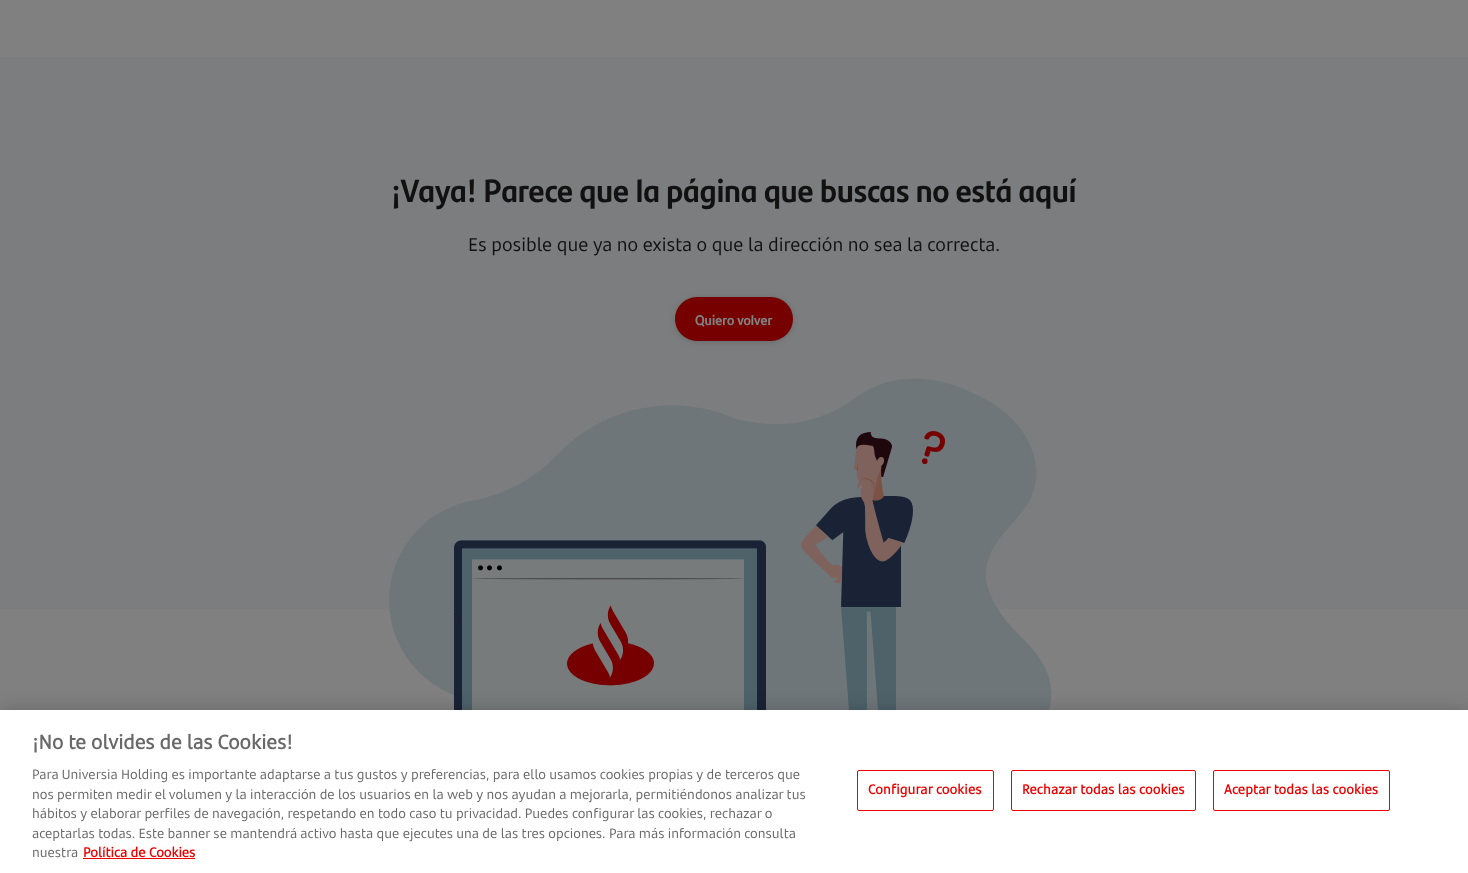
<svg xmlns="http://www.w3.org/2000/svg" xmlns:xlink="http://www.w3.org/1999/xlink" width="1468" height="873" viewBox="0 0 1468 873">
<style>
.cls-1{font:bold 32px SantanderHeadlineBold;fill:#111111}
.cls-2{font:18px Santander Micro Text;fill:#111111}
.cls-3{font:bold 14px SantanderHeadlineBold;fill:#808080}
.cls-4{font:bold 19.25px Santander Micro Text;fill:#696969}
.cls-5{font:13px Santander Micro Text;fill:#696969}
.cls-6{font:bold 13px Santander Micro Text;fill:#ec0000}
.cls-7{font:bold 13px Santander Micro Text;letter-spacing:0.1px;fill:#ec0000}
</style>
<rect width="100%" height="100%" fill="#808080"/>
<rect fill="#7b7d7e" x="0" y="57" width="1468" height="552"/>
<rect fill="#222222" fill-opacity="0.2" filter="blur(3px)" x="675" y="298" width="118" height="44" rx="22"/>
<rect fill="#760000" x="675" y="297" width="118" height="44" rx="22"/>
<image xlink:href="image0.png" x="389" y="378" width="663" height="332"/>
<rect fill="#000000" fill-opacity="0.2" filter="blur(9px)" x="0" y="710" width="1468" height="163"/>
<rect fill="#ffffff" x="0" y="710" width="1468" height="163"/>
<rect fill="#ec0000" x="83" y="858" width="112" height="1"/>
<rect fill="none" stroke="#ec0000" x="857.5" y="770.5" width="136" height="40" rx="1.5"/>
<rect fill="none" stroke="#ec0000" x="1011.5" y="770.5" width="184" height="40" rx="1.5"/>
<rect fill="none" stroke="#ec0000" x="1213.5" y="770.5" width="176" height="40" rx="1.5"/>
<text class="cls-1" x="391" y="202">¡Vaya! Parece que la página que buscas no está aquí</text>
<text class="cls-2" x="468" y="251">Es posible que ya no exista o que la dirección no sea la correcta.</text>
<text class="cls-3" x="695" y="325">Quiero volver</text>
<text class="cls-4" x="32" y="749">¡No te olvides de las Cookies!</text>
<text class="cls-5"><tspan x="32" y="779">Para Universia Holding es importante adaptarse a tus gustos y preferencias, para ello usamos cookies propias y de terceros que</tspan><tspan x="32" y="799">nos permiten medir el volumen y la interacción de los usuarios en la web y nos ayudan a mejorarla, permitiéndonos analizar tus</tspan><tspan x="32" y="818">hábitos y elaborar perfiles de navegación, respetando en todo caso tu privacidad. Puedes configurar las cookies, rechazar o</tspan><tspan x="32" y="838">aceptarlas todas. Este banner se mantendrá activo hasta que ejecutes una de las tres opciones. Para más información consulta</tspan><tspan x="32" y="857">nuestra</tspan></text>
<text class="cls-6" x="83" y="857">Política de Cookies</text>
<text class="cls-7" x="868" y="794">Configurar cookies</text>
<text class="cls-7" x="1022" y="794">Rechazar todas las cookies</text>
<text class="cls-7" x="1224" y="794">Aceptar todas las cookies</text>
</svg>
